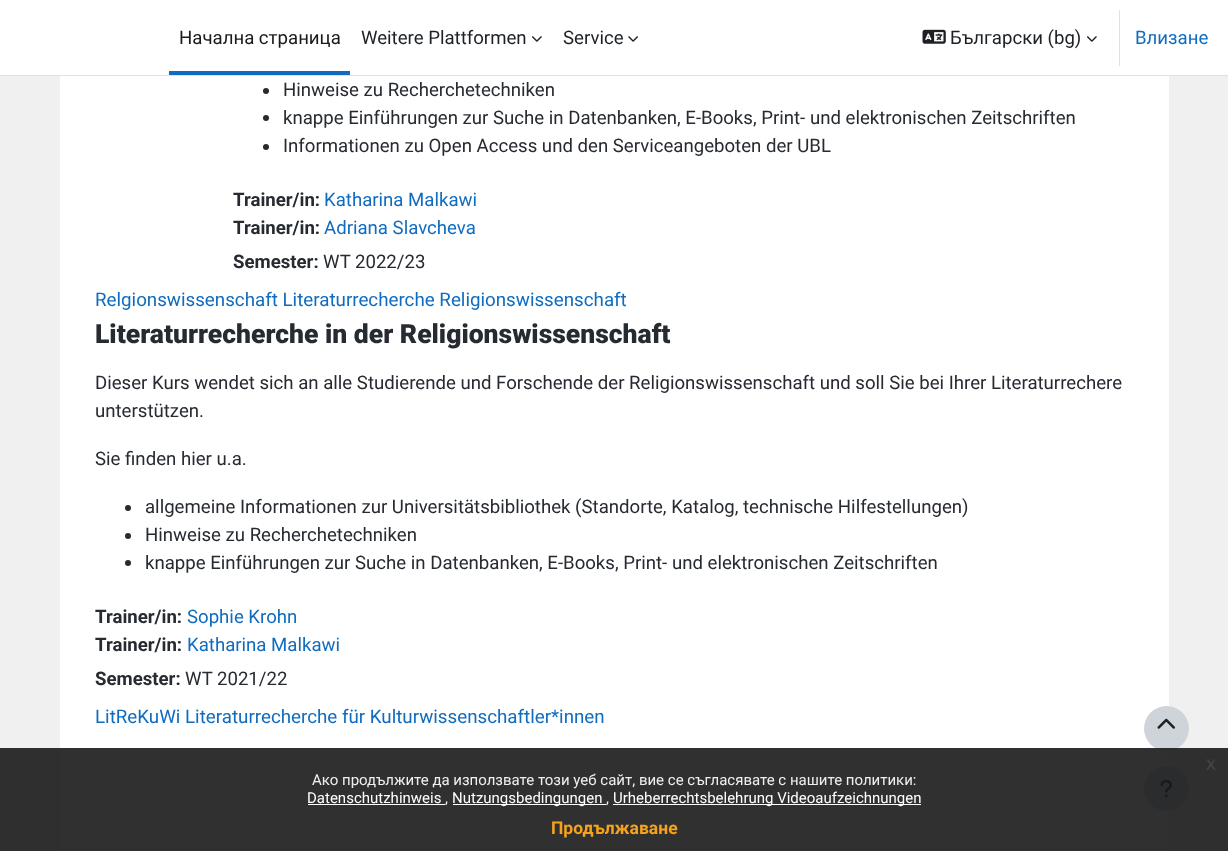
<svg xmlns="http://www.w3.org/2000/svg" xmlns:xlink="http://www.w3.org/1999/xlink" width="1228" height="851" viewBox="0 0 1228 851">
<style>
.cls-1{font:18.63px Roboto;fill:#1a1a1a}
.cls-2{font:18.63px Roboto;fill:#1d2125}
.cls-3{font:18.63px Roboto;fill:#0f6cbf}
.cls-4{font:18.63px Roboto;fill:#262a31}
.cls-5{font:bold 18.63px Roboto;fill:#262a31}
.cls-6{font:18.75px Roboto;fill:#0f6cbf}
.cls-7{font:900 26.5px Roboto;fill:#262a31}
.cls-8{font:20px Liberation Sans;fill:#464646}
.cls-9{font:15px Roboto;fill:#efefef}
.cls-10{font:15px Roboto;fill:#ffffff}
.cls-11{font:bold 17.5px Roboto;fill:#f6a21d}
</style>
<rect width="100%" height="100%" fill="#f0f0f0"/>
<rect fill="#ffffff" x="0" y="0" width="1228" height="75"/>
<rect fill="#dee2e6" x="0" y="75" width="1228" height="1"/>
<rect fill="#0f6cbf" x="169" y="71" width="181" height="4"/>
<image xlink:href="image0.png" x="532" y="36" width="10" height="6"/>
<image xlink:href="image1.png" x="628" y="36" width="10" height="6"/>
<image xlink:href="image2.png" x="922" y="29" width="24" height="15"/>
<image xlink:href="image0.png" x="1087" y="36" width="10" height="6"/>
<rect fill="#dee2e6" x="1119" y="10" width="1" height="56"/>
<rect fill="#ffffff" x="60" y="76" width="1109" height="775"/>
<circle fill="#262a31" cx="266" cy="91" r="3"/>
<circle fill="#262a31" cx="266" cy="118" r="3"/>
<circle fill="#262a31" cx="266" cy="147" r="3"/>
<circle fill="#262a31" cx="128" cy="508" r="3"/>
<circle fill="#262a31" cx="128" cy="536" r="3"/>
<circle fill="#262a31" cx="128" cy="563" r="3"/>
<circle fill="#ced4da" cx="1166.5" cy="728.5" r="22.5"/>
<image xlink:href="image3.png" x="1157" y="718" width="18" height="11"/>
<circle fill="#ced4da" cx="1166.5" cy="788.5" r="22.5"/>
<image xlink:href="image4.png" x="1160" y="780" width="12" height="18"/>
<rect fill="#191919" fill-opacity="0.9" x="0" y="748" width="1228" height="103"/>
<rect fill="#ffffff" x="308" y="804" width="137" height="1"/>
<rect fill="#ffffff" x="453" y="804" width="153" height="1"/>
<rect fill="#ffffff" x="613" y="804" width="308" height="1"/>
<text class="cls-1" x="179" y="44">Начална страница</text>
<text class="cls-2" x="361" y="44">Weitere Plattformen</text>
<text class="cls-2" x="563" y="44">Service</text>
<text class="cls-2" x="950" y="44">Български (bg)</text>
<text class="cls-3" x="1135" y="44">Влизане</text>
<text class="cls-4"><tspan x="283" y="96">Hinweise zu Recherchetechniken</tspan><tspan x="283" y="124">knappe Einführungen zur Suche in Datenbanken, E-Books, Print- und elektronischen Zeitschriften</tspan><tspan x="283" y="152">Informationen zu Open Access und den Serviceangeboten der UBL</tspan></text>
<text class="cls-5" x="233" y="206">Trainer/in:</text>
<text class="cls-3" x="324" y="206">Katharina Malkawi</text>
<text class="cls-5" x="233" y="234">Trainer/in:</text>
<text class="cls-3" x="324" y="234">Adriana Slavcheva</text>
<text class="cls-5" x="233" y="268">Semester:</text>
<text class="cls-4" x="323" y="268">WT 2022/23</text>
<text class="cls-6" x="95" y="306">Relgionswissenschaft Literaturrecherche Religionswissenschaft</text>
<text class="cls-7" x="95" y="343">Literaturrecherche in der Religionswissenschaft</text>
<text class="cls-4"><tspan x="95" y="389">Dieser Kurs wendet sich an alle Studierende und Forschende der Religionswissenschaft und soll Sie bei Ihrer Literaturrechere</tspan><tspan x="95" y="417">unterstützen.</tspan></text>
<text class="cls-4" x="95" y="465">Sie finden hier u.a.</text>
<text class="cls-4"><tspan x="145" y="513">allgemeine Informationen zur Universitätsbibliothek (Standorte, Katalog, technische Hilfestellungen)</tspan><tspan x="145" y="541">Hinweise zu Recherchetechniken</tspan><tspan x="145" y="569">knappe Einführungen zur Suche in Datenbanken, E-Books, Print- und elektronischen Zeitschriften</tspan></text>
<text class="cls-5" x="95" y="623">Trainer/in:</text>
<text class="cls-3" x="187" y="623">Sophie Krohn</text>
<text class="cls-5" x="95" y="651">Trainer/in:</text>
<text class="cls-3" x="187" y="651">Katharina Malkawi</text>
<text class="cls-5" x="95" y="685">Semester:</text>
<text class="cls-4" x="185" y="685">WT 2021/22</text>
<text class="cls-6" x="95" y="723">LitReKuWi Literaturrecherche für Kulturwissenschaftler*innen</text>
<text class="cls-8" x="1206" y="770">x</text>
<text class="cls-9" x="312" y="785">Ако продължите да използвате този уеб сайт, вие се съгласявате с нашите политики:</text>
<text class="cls-10" x="307" y="803">Datenschutzhinweis</text>
<text class="cls-9" x="445" y="803">,</text>
<text class="cls-10" x="452" y="803">Nutzungsbedingungen</text>
<text class="cls-9" x="606" y="803">,</text>
<text class="cls-10" x="613" y="803">Urheberrechtsbelehrung Videoaufzeichnungen</text>
<text class="cls-11" x="551" y="834">Продължаване</text>
</svg>
